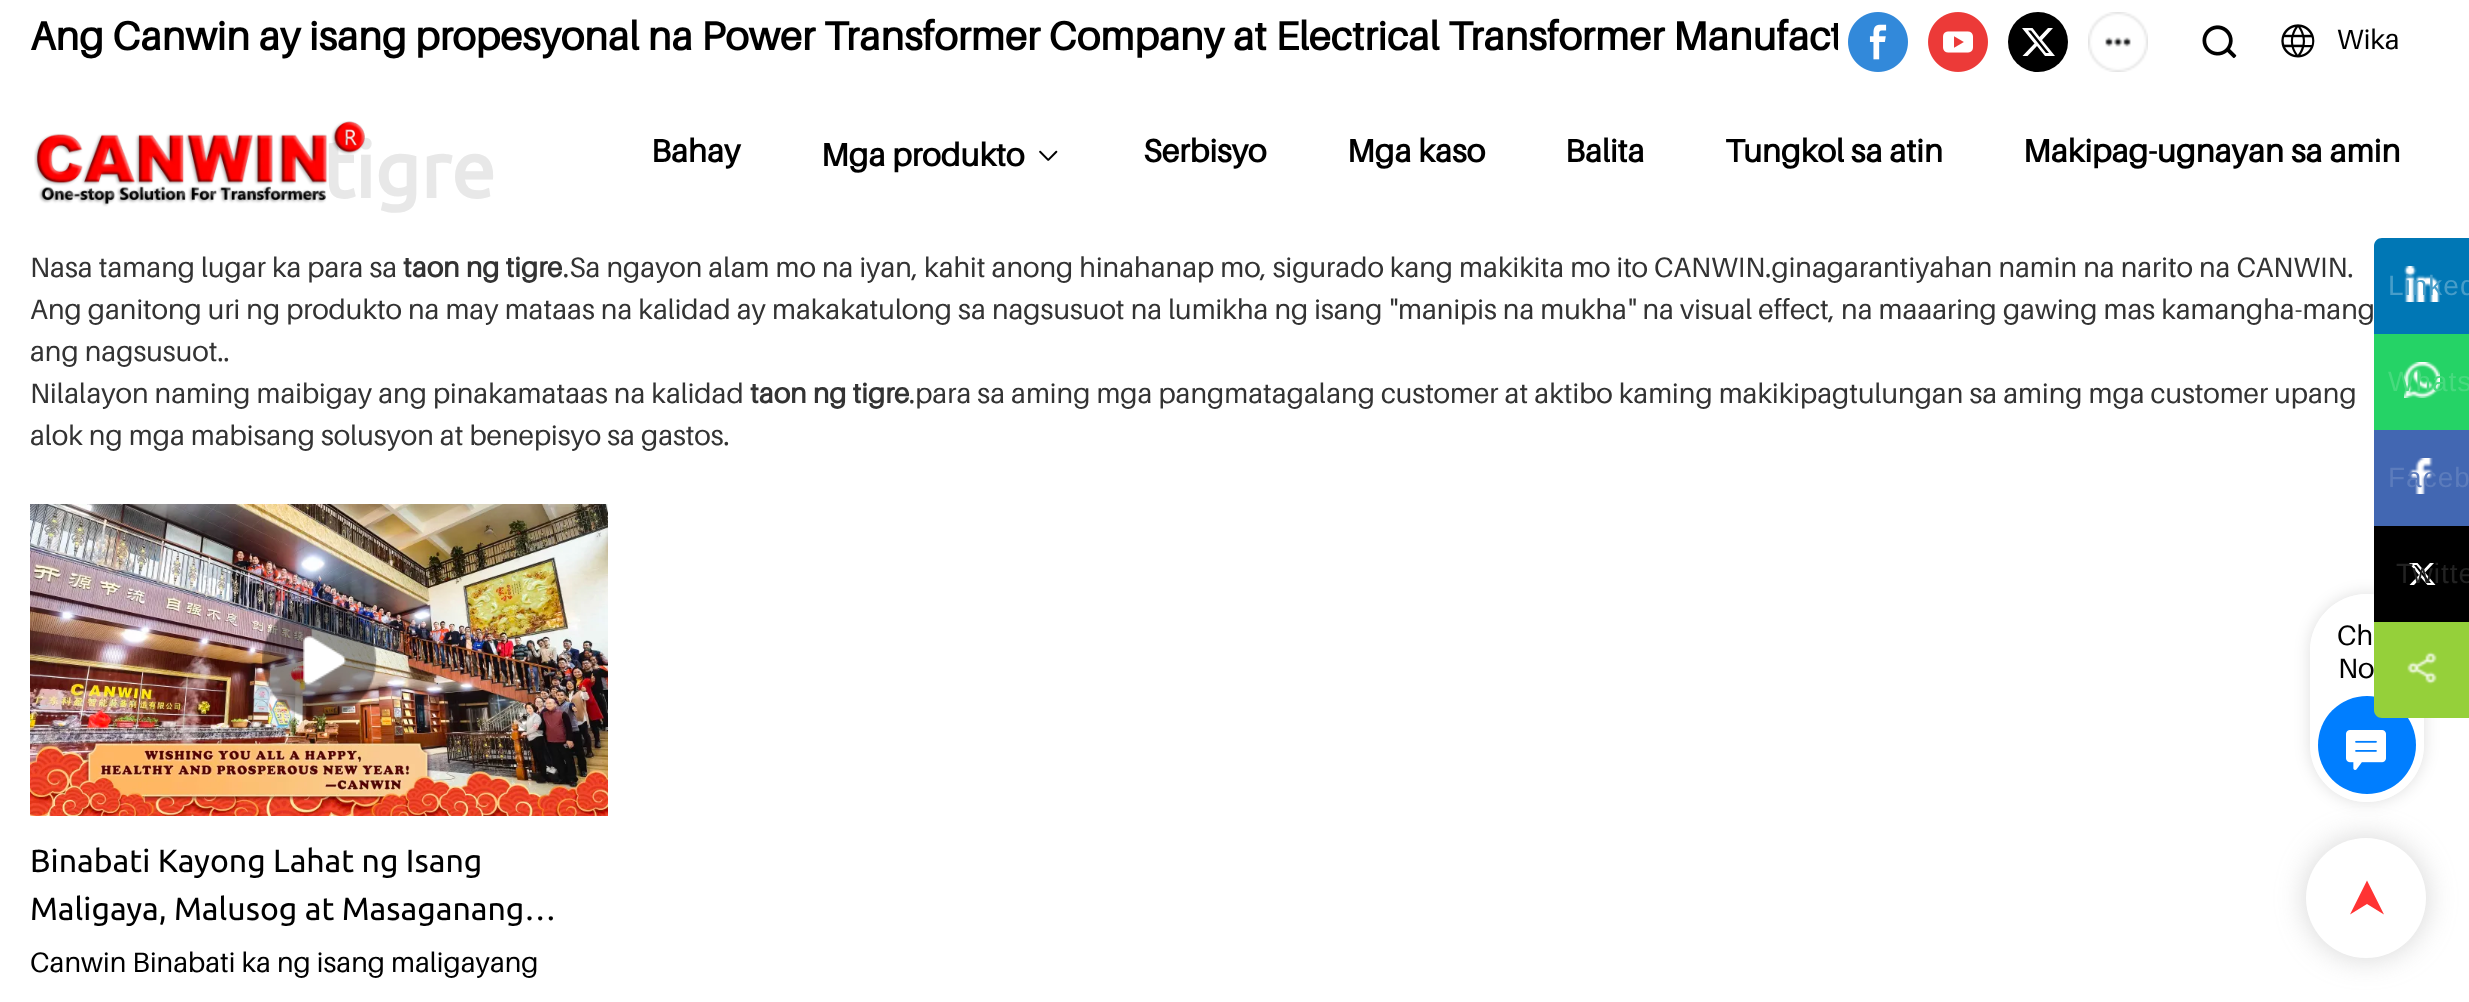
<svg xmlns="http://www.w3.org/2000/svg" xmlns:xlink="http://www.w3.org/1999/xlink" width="2469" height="1002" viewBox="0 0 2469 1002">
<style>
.cls-1{font:bold 40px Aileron;fill:#000000}
.cls-2{font:28px Aileron;fill:#000000}
.cls-3{font:bold 32px Aileron;fill:#000000}
.cls-4{font:bold 79px Ubuntu;fill:#e8e8e8}
.cls-5{font:28px Aileron;fill:#333333}
.cls-6{font:bold 28px Aileron;fill:#333333}
.cls-7{font:32px Ubuntu;fill:#000000}
.cls-8{font:28px Liberation Sans;letter-spacing:1px;fill:#479dc9}
.cls-9{font:28px Liberation Sans;letter-spacing:1px;fill:#47da7e}
.cls-10{font:28px Liberation Sans;letter-spacing:1px;fill:#5c7cbc}
.cls-11{font:28px Liberation Sans;letter-spacing:1px;fill:#222222}
</style>
<defs>
<clipPath id="clip1"><path d="M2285 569H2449V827H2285ZM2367 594C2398.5 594 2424 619.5 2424 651V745C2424 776.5 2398.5 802 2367 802C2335.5 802 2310 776.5 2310 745V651C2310 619.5 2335.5 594 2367 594Z" clip-rule="evenodd"/></clipPath>
<clipPath id="clip2"><rect x="30" y="0" width="1808" height="82"/></clipPath>
</defs>
<rect width="100%" height="100%" fill="#ffffff"/>
<image xlink:href="image0.png" x="1848" y="12" width="60" height="60"/>
<image xlink:href="image1.png" x="1928" y="12" width="60" height="60"/>
<circle fill="#000000" cx="2038" cy="42" r="30"/>
<path fill="#ffffff" d="M2048 28H2053L2042 40L2055 56H2045L2037 46L2027.5 56H2022.5L2034.5 43.5L2022 28H2032.5L2039.5 37ZM2046 53H2049L2031 30.5H2028Z"/>
<image xlink:href="image2.png" x="2088" y="12" width="60" height="60"/>
<image xlink:href="image3.png" x="2202" y="25" width="35" height="34"/>
<image xlink:href="image4.png" x="2281" y="24" width="34" height="34"/>
<image xlink:href="image6.png" x="1039" y="150" width="19" height="11"/>
<image xlink:href="image7.png" x="30" y="504" width="578" height="312"/>
<image xlink:href="image8.png" x="262" y="602" width="115" height="117"/>
<path fill="#0077b5" d="M2382 238H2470V334H2374V246C2374 241.5 2377.5 238 2382 238Z"/>
<image xlink:href="image9.png" x="2404" y="266" width="36" height="36"/>
<rect fill="#25d366" x="2374" y="334" width="95" height="96"/>
<image xlink:href="image10.png" x="2404" y="362" width="36" height="36"/>
<rect fill="#4267b2" x="2374" y="430" width="95" height="96"/>
<image xlink:href="image11.png" x="2409" y="458" width="24" height="36"/>
<g clip-path="url(#clip1)">
<rect fill="#000000" fill-opacity="0.13" filter="blur(8px)" x="2310" y="594" width="114" height="208" rx="57"/>
</g>
<rect fill="#959595" fill-opacity="0.4" filter="blur(15px)" x="2306" y="838" width="120" height="120" rx="60"/>
<rect fill="#ffffff" fill-opacity="0.8" x="2310" y="594" width="114" height="208" rx="57"/>
<rect fill="#000000" x="2374" y="526" width="95" height="96"/>
<path fill="#ffffff" d="M2430 563H2434L2425 572.5L2435.5 585H2427.5L2421 577.5L2414 585H2409.5L2419 575L2409 563H2417.5L2423.5 570ZM2428.5 583H2431L2416.5 565H2414Z"/>
<circle fill="#007eff" cx="2367" cy="745" r="49"/>
<path fill="#95d03a" d="M2374 622H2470V718H2382C2377.5 718 2374 714.5 2374 710Z"/>
<image xlink:href="image12.png" x="2407" y="651" width="30" height="34"/>
<image xlink:href="image13.png" x="2346" y="730" width="40" height="40"/>
<circle fill="#ffffff" cx="2366" cy="898" r="60"/>
<path fill="#ff3333" d="M2384 914.5L2367 904L2350 914.5L2367 880.5Z"/>
<g clip-path="url(#clip2)">
<text class="cls-1" x="30" y="50">Ang Canwin ay isang propesyonal na Power Transformer Company at Electrical Transformer Manufact</text>
</g>
<text class="cls-2" x="2337" y="49">Wika</text>
<text class="cls-3" x="651" y="162">Bahay</text>
<text class="cls-3" x="821" y="166">Mga produkto</text>
<text class="cls-3" x="1143" y="162">Serbisyo</text>
<text class="cls-3" x="1347" y="162">Mga kaso</text>
<text class="cls-3" x="1565" y="162">Balita</text>
<text class="cls-3" x="1725" y="162">Tungkol sa atin</text>
<text class="cls-3" x="2023" y="162">Makipag-ugnayan sa amin</text>
<text class="cls-4" x="323" y="198">tigre</text>
<image xlink:href="image5.png" x="34" y="121" width="331" height="86"/>
<text class="cls-5" x="30" y="277">Nasa tamang lugar ka para sa</text>
<text class="cls-6" x="403" y="277">taon ng tigre</text>
<text class="cls-5" x="563" y="277">.Sa ngayon alam mo na iyan, kahit anong hinahanap mo, sigurado kang makikita mo ito CANWIN.ginagarantiyahan namin na narito na CANWIN.</text>
<text class="cls-5"><tspan x="30" y="319">Ang ganitong uri ng produkto na may mataas na kalidad ay makakatulong sa nagsusuot na lumikha ng isang "manipis na mukha" na visual effect, na maaaring gawing mas kamangha-mang</tspan><tspan x="30" y="361">ang nagsusuot..</tspan><tspan x="30" y="403">Nilalayon naming maibigay ang pinakamataas na kalidad</tspan></text>
<text class="cls-6" x="750" y="403">taon ng tigre</text>
<text class="cls-5" x="909" y="403">.para sa aming mga pangmatagalang customer at aktibo kaming makikipagtulungan sa aming mga customer upang</text>
<text class="cls-5" x="30" y="445">alok ng mga mabisang solusyon at benepisyo sa gastos.</text>
<text class="cls-7"><tspan x="30" y="872">Binabati Kayong Lahat ng Isang</tspan><tspan x="30" y="920">Maligaya, Malusog at Masaganang…</tspan></text>
<text class="cls-2" x="30" y="972">Canwin Binabati ka ng isang maligayang</text>
<text class="cls-8" x="2388" y="295">Linked</text>
<text class="cls-9" x="2388" y="391">Whats</text>
<text class="cls-10" x="2388" y="487">Faceb</text>
<text class="cls-11" x="2396" y="583">Twitte</text>
<text class="cls-2" x="2337" y="645">Ch</text>
<text class="cls-2" x="2338" y="678">No</text>
</svg>
